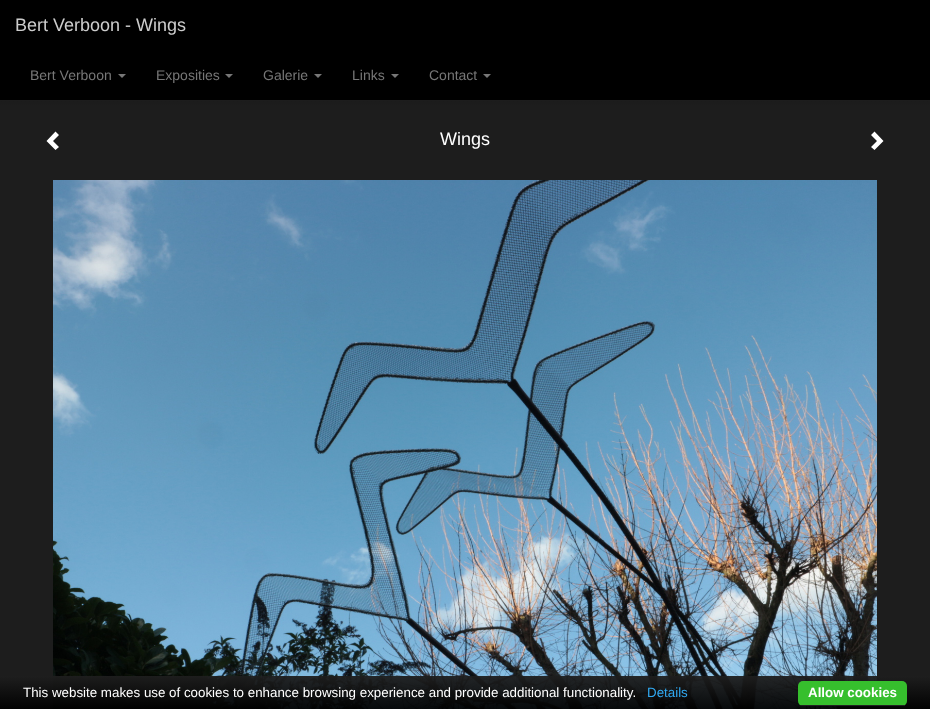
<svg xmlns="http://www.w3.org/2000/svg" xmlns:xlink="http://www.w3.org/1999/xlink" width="930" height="709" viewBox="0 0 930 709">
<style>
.cls-1{font:18px Liberation Sans;fill:#cccccc}
.cls-2{font:14px Liberation Sans;fill:#777777}
.cls-3{font:18px Liberation Sans;fill:#ffffff}
.cls-4{font:13.35px Liberation Sans;fill:#ffffff}
.cls-5{font:13.35px Liberation Sans;fill:#31a8f0}
.cls-6{font:bold 13.35px Liberation Sans;fill:#ffffff}
</style>
<defs>
<linearGradient id="g1" gradientUnits="userSpaceOnUse" x1="465" y1="0" x2="465" y2="709"><stop offset="0" stop-color="#000000"/><stop offset="0.15" stop-color="#1d1d1d"/></linearGradient>
<linearGradient id="g2" gradientUnits="userSpaceOnUse" x1="465" y1="676" x2="465" y2="709"><stop offset="0" stop-color="#1e1e1e" stop-opacity="0.95"/><stop offset="1" stop-color="#000000" stop-opacity="0.95"/></linearGradient>
</defs>
<rect width="100%" height="100%" fill="#ffffff"/>
<rect fill="url(#g1)" x="0" y="101" width="930" height="608"/>
<rect fill="#000000" x="0" y="0" width="930" height="100"/>
<rect fill="#1d1d1d" x="0" y="100" width="930" height="1"/>
<path fill="#777777" d="M118 74H126L122 78Z"/>
<path fill="#777777" d="M225 74H233L229 78Z"/>
<path fill="#777777" d="M314 74H322L318 78Z"/>
<path fill="#777777" d="M391 74H399L395 78Z"/>
<path fill="#777777" d="M483 74H491L487 78Z"/>
<path fill="#ffffff" d="M59 135L53 141L59 147L55.5 150L46.5 141L55.5 131.5Z"/>
<path fill="#ffffff" d="M883.5 141L874.5 150L871 147L877 141L871 135L874.5 131.5Z"/>
<image xlink:href="image0.png" x="53" y="180" width="824" height="529"/>
<rect fill="url(#g2)" x="0" y="676" width="930" height="33"/>
<rect fill="#36bf2d" x="798" y="681" width="109" height="25" rx="5"/>
<rect fill="#222222" x="801" y="705" width="104" height="1"/>
<text class="cls-1" x="15" y="31">Bert Verboon - Wings</text>
<text class="cls-2" x="30" y="80">Bert Verboon</text>
<text class="cls-2" x="156" y="80">Exposities</text>
<text class="cls-2" x="263" y="80">Galerie</text>
<text class="cls-2" x="352" y="80">Links</text>
<text class="cls-2" x="429" y="80">Contact</text>
<text class="cls-3" x="440" y="145">Wings</text>
<text class="cls-4" x="23" y="697">This website makes use of cookies to enhance browsing experience and provide additional functionality.</text>
<text class="cls-5" x="647" y="697">Details</text>
<text class="cls-6" x="808" y="697">Allow cookies</text>
</svg>
